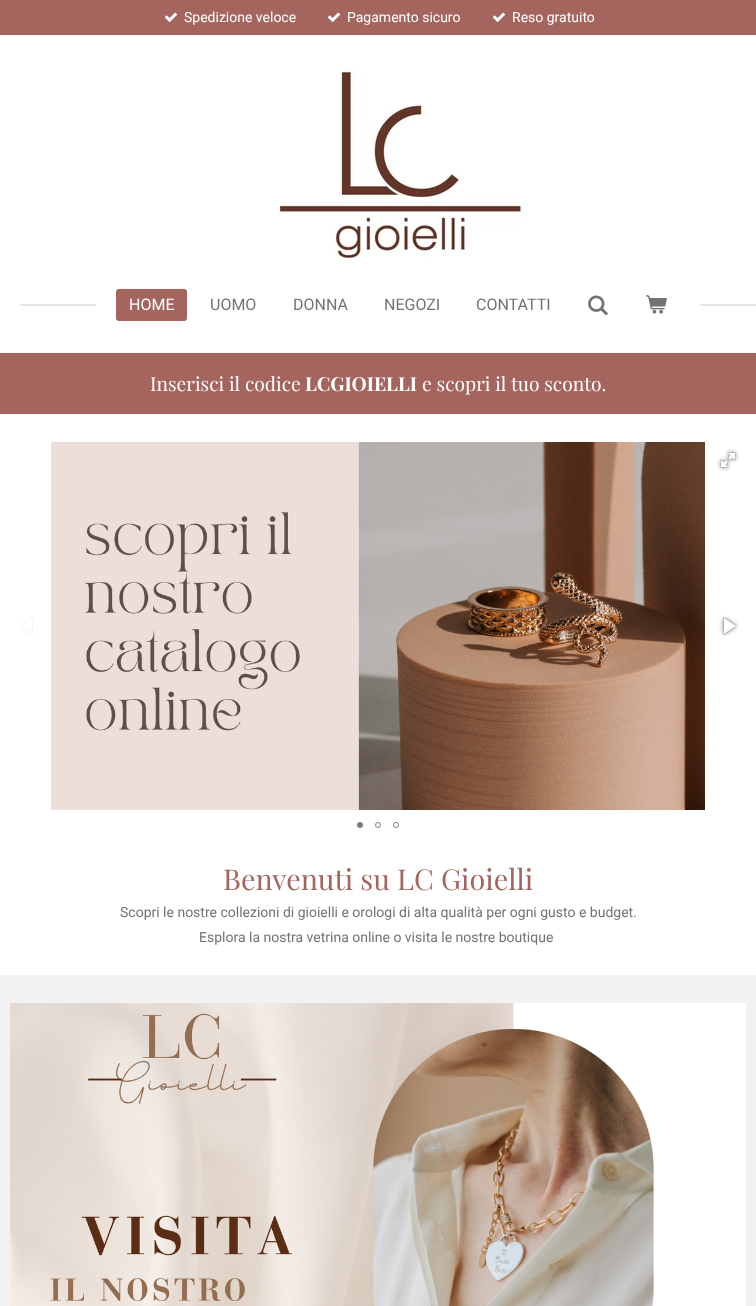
<svg xmlns="http://www.w3.org/2000/svg" xmlns:xlink="http://www.w3.org/1999/xlink" width="756" height="1306" viewBox="0 0 756 1306">
<style>
.cls-1{font:14px Roboto;fill:#ffffff}
.cls-2{font:16px Roboto;fill:#ffffff}
.cls-3{font:16px Roboto;fill:#737373}
.cls-4{font:19.25px Playfair Display;fill:#ffffff}
.cls-5{font:bold 19.25px Playfair Display;fill:#ffffff}
.cls-6{font:28.75px Playfair Display;fill:#a5655f}
.cls-7{font:14px Roboto;fill:#737373}
</style>
<rect width="100%" height="100%" fill="#ffffff"/>
<rect fill="#a5655f" x="0" y="0" width="756" height="35"/>
<image xlink:href="image0.png" x="165" y="12" width="12" height="10"/>
<image xlink:href="image0.png" x="328" y="12" width="12" height="10"/>
<image xlink:href="image0.png" x="493" y="12" width="12" height="10"/>
<image xlink:href="image1.png" x="278" y="70" width="248" height="189"/>
<rect fill="#e6e6e6" x="20" y="304" width="76" height="2"/>
<rect fill="#a5655f" x="116" y="289" width="71" height="32" rx="3"/>
<image xlink:href="image2.png" x="588" y="295" width="20" height="21"/>
<image xlink:href="image3.png" x="646" y="295" width="21" height="19"/>
<rect fill="#e6e6e6" x="700" y="304" width="56" height="2"/>
<rect fill="#a5655f" x="0" y="353" width="756" height="61"/>
<image xlink:href="image4.png" x="51" y="442" width="654" height="368"/>
<image xlink:href="image5.png" x="717" y="449" width="22" height="22"/>
<image xlink:href="image6.png" x="19" y="617" width="14" height="18"/>
<image xlink:href="image7.png" x="719" y="615" width="20" height="22"/>
<circle fill="#7f7f7f" cx="360" cy="825" r="3"/>
<circle fill="none" stroke="#7f7f7f" cx="378" cy="825" r="2.5"/>
<circle fill="none" stroke="#7f7f7f" cx="396" cy="825" r="2.5"/>
<rect fill="#f2f2f2" x="0" y="975" width="756" height="331"/>
<image xlink:href="image8.png" x="10" y="1003" width="736" height="303"/>
<text class="cls-1" x="184" y="22">Spedizione veloce</text>
<text class="cls-1" x="347" y="22">Pagamento sicuro</text>
<text class="cls-1" x="512" y="22">Reso gratuito</text>
<text class="cls-2" x="129" y="310">HOME</text>
<text class="cls-3" x="210" y="310">UOMO</text>
<text class="cls-3" x="293" y="310">DONNA</text>
<text class="cls-3" x="384" y="310">NEGOZI</text>
<text class="cls-3" x="476" y="310">CONTATTI</text>
<text class="cls-4" x="150" y="391">Inserisci il codice</text>
<text class="cls-5" x="305" y="391">LCGIOIELLI</text>
<text class="cls-4" x="422" y="391">e scopri il tuo sconto.</text>
<text class="cls-6" x="223" y="890">Benvenuti su LC Gioielli</text>
<text class="cls-7" x="120" y="917">Scopri le nostre collezioni di gioielli e orologi di alta qualità per ogni gusto e budget.</text>
<text class="cls-7" x="199" y="942">Esplora la nostra vetrina online o visita le nostre boutique</text>
</svg>
